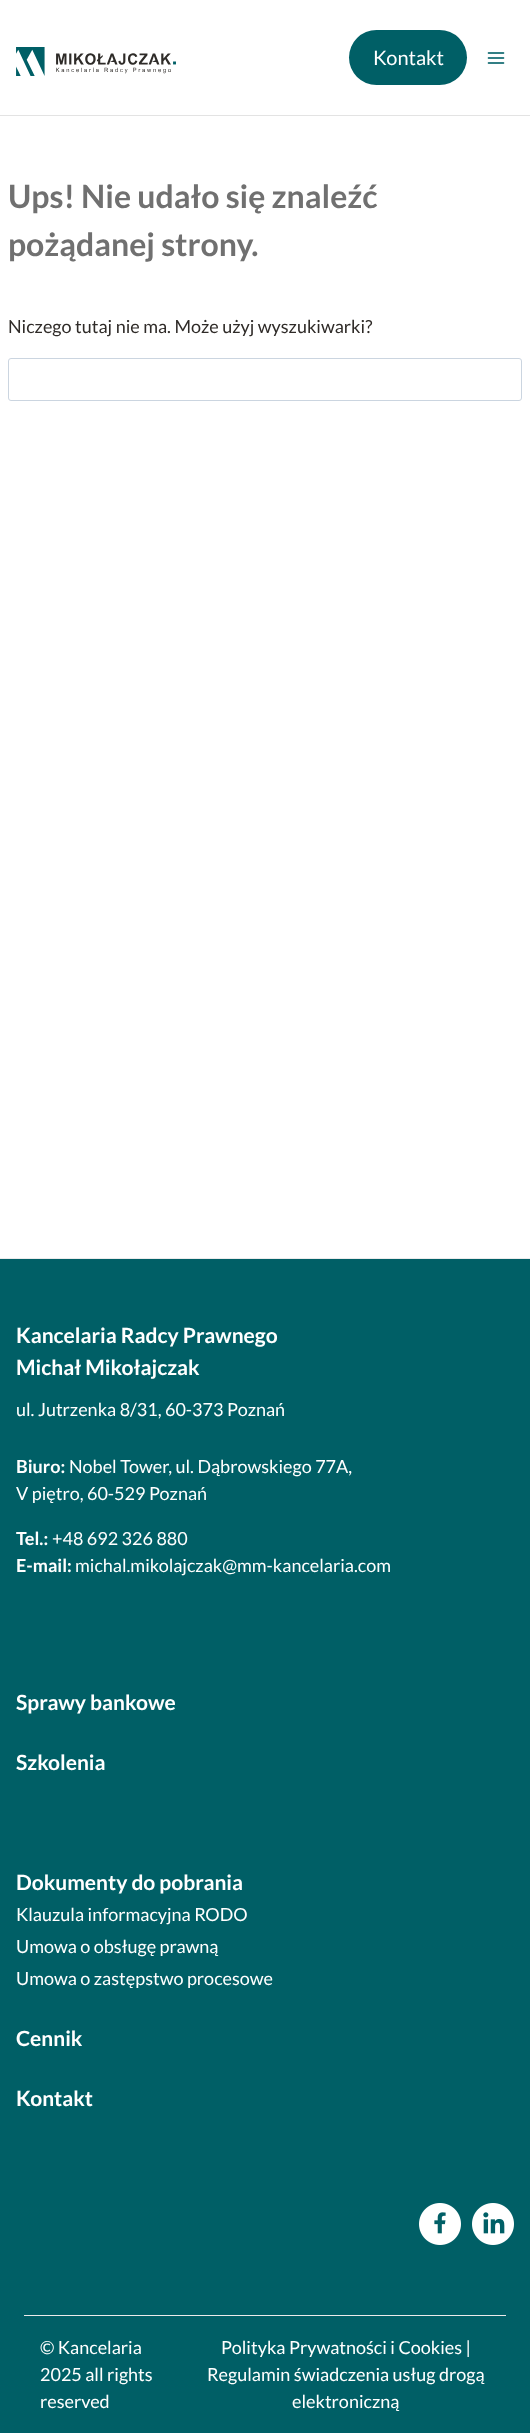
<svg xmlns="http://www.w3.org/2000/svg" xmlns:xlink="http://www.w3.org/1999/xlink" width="530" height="2433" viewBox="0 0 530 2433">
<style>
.cls-1{font:20px Lato;fill:#ffffff}
.cls-2{font:bold 32px Lato;fill:#707070}
.cls-3{font:18px Lato;fill:#2f2b28}
.cls-4{font:bold 21px Lato;fill:#ffffff}
.cls-5{font:18px Lato;fill:#ffffff}
.cls-6{font:bold 18px Lato;fill:#ffffff}
</style>
<rect width="100%" height="100%" fill="#ffffff"/>
<rect fill="#e3e3e3" x="0" y="115" width="530" height="1"/>
<image xlink:href="image0.png" x="16" y="47" width="160" height="29"/>
<rect fill="#005f66" x="349" y="30" width="118" height="55" rx="27.5"/>
<image xlink:href="image1.png" x="487" y="52" width="18" height="12"/>
<rect fill="none" stroke="#cbd5e0" x="8.5" y="358.5" width="513" height="42" rx="2.5"/>
<rect fill="#005f66" x="0" y="1259" width="530" height="1174"/>
<rect fill="#ebebeb" x="0" y="1258" width="530" height="1"/>
<image xlink:href="image2.png" x="419" y="2203" width="42" height="42"/>
<image xlink:href="image3.png" x="472" y="2203" width="42" height="42"/>
<rect fill="#ebebeb" x="24" y="2315" width="482" height="1"/>
<text class="cls-1" x="373" y="65">Kontakt</text>
<text class="cls-2"><tspan x="8" y="208">Ups! Nie udało się znaleźć</tspan><tspan x="8" y="256">pożądanej strony.</tspan></text>
<text class="cls-3" x="8" y="333">Niczego tutaj nie ma. Może użyj wyszukiwarki?</text>
<text class="cls-4"><tspan x="16" y="1343">Kancelaria Radcy Prawnego</tspan><tspan x="16" y="1375">Michał Mikołajczak</tspan></text>
<text class="cls-5" x="16" y="1416">ul. Jutrzenka 8/31, 60-373 Poznań</text>
<text class="cls-6" x="16" y="1473">Biuro:</text>
<text class="cls-5" x="69" y="1473">Nobel Tower, ul. Dąbrowskiego 77A,</text>
<text class="cls-5" x="16" y="1500">V piętro, 60-529 Poznań</text>
<text class="cls-6" x="16" y="1545">Tel.:</text>
<text class="cls-5" x="52" y="1545">+48 692 326 880</text>
<text class="cls-6" x="16" y="1572">E-mail:</text>
<text class="cls-5" x="75" y="1572">michal.mikolajczak@mm-kancelaria.com</text>
<text class="cls-4" x="16" y="1710">Sprawy bankowe</text>
<text class="cls-4" x="16" y="1770">Szkolenia</text>
<text class="cls-4" x="16" y="1890">Dokumenty do pobrania</text>
<text class="cls-5"><tspan x="16" y="1921">Klauzula informacyjna RODO</tspan><tspan x="16" y="1953">Umowa o obsługę prawną</tspan><tspan x="16" y="1985">Umowa o zastępstwo procesowe</tspan></text>
<text class="cls-4" x="16" y="2046">Cennik</text>
<text class="cls-4" x="16" y="2106">Kontakt</text>
<text class="cls-5"><tspan x="40" y="2354">© Kancelaria</tspan><tspan x="40" y="2381">2025 all rights</tspan><tspan x="40" y="2408">reserved</tspan></text>
<text class="cls-5" x="221" y="2354">Polityka Prywatności i Cookies |</text>
<text class="cls-5" x="207" y="2381">Regulamin świadczenia usług drogą</text>
<text class="cls-5" x="292" y="2408">elektroniczną</text>
</svg>
